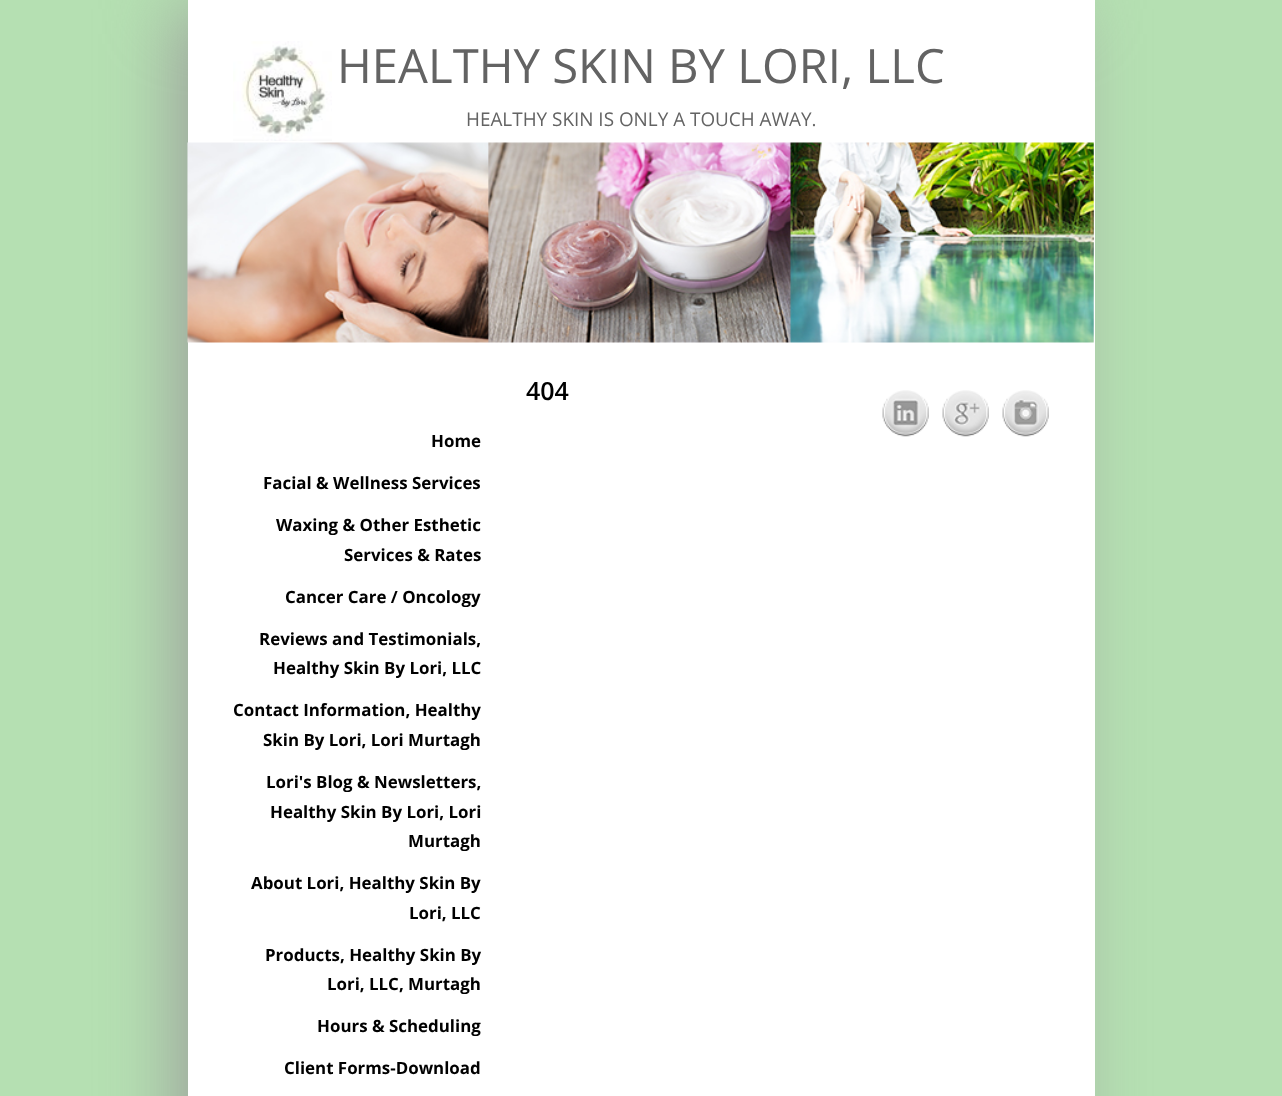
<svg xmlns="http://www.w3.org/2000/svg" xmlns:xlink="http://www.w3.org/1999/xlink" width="1282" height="1096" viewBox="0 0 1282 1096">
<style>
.cls-1{font:47.25px Open Sans;fill:#636363}
.cls-2{font:18.9px Open Sans;fill:#636363}
.cls-3{font:600 25px Open Sans;fill:#000000}
.cls-4{font:bold 16.9px Open Sans;fill:#000000}
</style>
<rect width="100%" height="100%" fill="#b5e0b2"/>
<rect fill="#999999" filter="blur(37.5px)" x="180" y="9" width="885" height="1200"/>
<rect fill="#ffffff" x="188" y="0" width="907" height="1096"/>
<image xlink:href="image0.png" x="233" y="41" width="99" height="100"/>
<image xlink:href="image1.png" x="187" y="142" width="907" height="201"/>
<image xlink:href="image2.png" x="882" y="390" width="47" height="47"/>
<image xlink:href="image3.png" x="942" y="390" width="47" height="47"/>
<image xlink:href="image4.png" x="1002" y="390" width="47" height="47"/>
<text class="cls-1" x="337" y="83">HEALTHY SKIN BY LORI, LLC</text>
<text class="cls-2" x="466" y="126">HEALTHY SKIN IS ONLY A TOUCH AWAY.</text>
<text class="cls-3" x="526" y="400">404</text>
<text class="cls-4" x="431" y="447">Home</text>
<text class="cls-4" x="263" y="489">Facial &amp; Wellness Services</text>
<text class="cls-4" x="276" y="531">Waxing &amp; Other Esthetic</text>
<text class="cls-4" x="344" y="561">Services &amp; Rates</text>
<text class="cls-4" x="285" y="603">Cancer Care / Oncology</text>
<text class="cls-4" x="259" y="645">Reviews and Testimonials,</text>
<text class="cls-4" x="273" y="674">Healthy Skin By Lori, LLC</text>
<text class="cls-4" x="233" y="716">Contact Information, Healthy</text>
<text class="cls-4" x="263" y="746">Skin By Lori, Lori Murtagh</text>
<text class="cls-4" x="266" y="788">Lori's Blog &amp; Newsletters,</text>
<text class="cls-4" x="270" y="818">Healthy Skin By Lori, Lori</text>
<text class="cls-4" x="408" y="847">Murtagh</text>
<text class="cls-4" x="251" y="889">About Lori, Healthy Skin By</text>
<text class="cls-4" x="409" y="919">Lori, LLC</text>
<text class="cls-4" x="265" y="961">Products, Healthy Skin By</text>
<text class="cls-4" x="327" y="990">Lori, LLC, Murtagh</text>
<text class="cls-4" x="317" y="1032">Hours &amp; Scheduling</text>
<text class="cls-4" x="284" y="1074">Client Forms-Download</text>
</svg>
